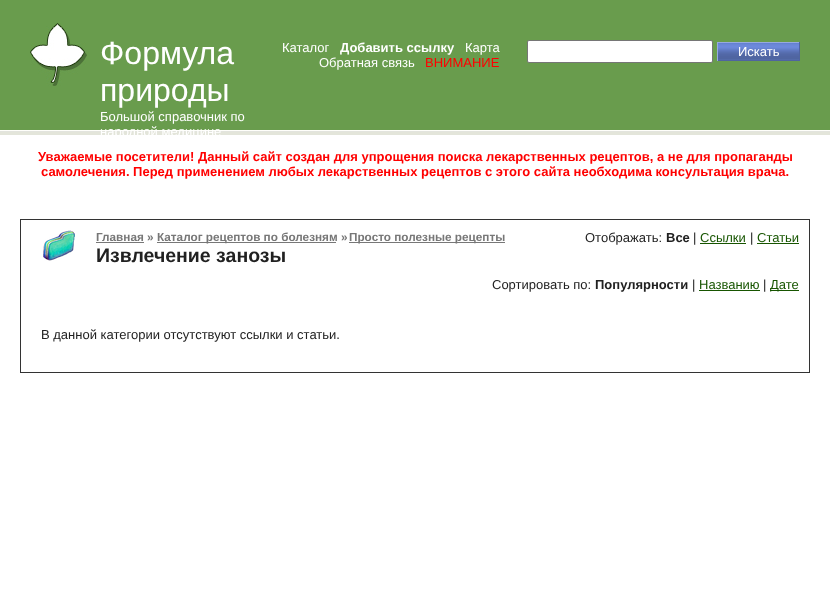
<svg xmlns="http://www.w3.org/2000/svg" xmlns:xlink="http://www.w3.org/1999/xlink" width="830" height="594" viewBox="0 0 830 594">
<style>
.cls-1{font:32px Liberation Sans;fill:#ffffff}
.cls-2{font:13px Liberation Sans;fill:#ffffff}
.cls-3{font:bold 13px Liberation Sans;fill:#ffffff}
.cls-4{font:13px Liberation Sans;fill:#ff0000}
.cls-5{font:bold 13px Liberation Sans;fill:#ff0000}
.cls-6{font:bold 11.75px Liberation Sans;fill:#777777}
.cls-7{font:13px Liberation Sans;fill:#212121}
.cls-8{font:bold 13px Liberation Sans;fill:#212121}
.cls-9{font:13px Liberation Sans;fill:#175500}
.cls-10{font:bold 19.5px Liberation Sans;fill:#212121}
</style>
<rect width="100%" height="100%" fill="#ffffff"/>
<image xlink:href="image0.png" x="0" y="0" width="830" height="135"/>
<image xlink:href="image1.png" x="30" y="23" width="57" height="63"/>
<rect fill="#ffffff" stroke="#767676" x="527.5" y="40.5" width="185" height="22" rx="1.5"/>
<image xlink:href="image2.png" x="718" y="43" width="81" height="17"/>
<rect fill="#97a9df" x="717" y="42" width="83" height="1"/>
<rect fill="#4f64a0" x="799" y="42" width="1" height="19"/>
<rect fill="#4f64a0" x="717" y="60" width="83" height="1"/>
<rect fill="#97a9df" x="717" y="42" width="1" height="19"/>
<rect fill="#333333" x="20" y="219" width="790" height="1"/>
<rect fill="#333333" x="809" y="219" width="1" height="154"/>
<rect fill="#333333" x="20" y="372" width="790" height="1"/>
<rect fill="#333333" x="20" y="219" width="1" height="154"/>
<image xlink:href="image3.png" x="43" y="230" width="32" height="31"/>
<rect fill="#777777" x="96" y="242" width="48" height="1"/>
<rect fill="#777777" x="157" y="242" width="179" height="1"/>
<rect fill="#777777" x="349" y="242" width="156" height="1"/>
<rect fill="#175500" x="700" y="243" width="46" height="1"/>
<rect fill="#175500" x="757" y="243" width="42" height="1"/>
<rect fill="#175500" x="699" y="290" width="61" height="1"/>
<rect fill="#175500" x="770" y="290" width="29" height="1"/>
<text class="cls-1"><tspan x="100" y="64">Формула</tspan><tspan x="100" y="101">природы</tspan></text>
<text class="cls-2"><tspan x="100" y="121">Большой справочник по</tspan><tspan x="100" y="136">народной медицине</tspan></text>
<text class="cls-2" x="282" y="52">Каталог</text>
<text class="cls-3" x="340" y="52">Добавить ссылку</text>
<text class="cls-2" x="465" y="52">Карта</text>
<text class="cls-2" x="319" y="67">Обратная связь</text>
<text class="cls-4" x="425" y="67">ВНИМАНИЕ</text>
<text class="cls-2" x="738" y="56">Искать</text>
<text class="cls-5" x="38" y="161">Уважаемые посетители! Данный сайт создан для упрощения поиска лекарственных рецептов, а не для пропаганды</text>
<text class="cls-5" x="41" y="176">самолечения. Перед применением любых лекарственных рецептов с этого сайта необходима консультация врача.</text>
<text class="cls-6" x="96" y="241">Главная »</text>
<text class="cls-6" x="157" y="241">Каталог рецептов по болезням »</text>
<text class="cls-6" x="349" y="241">Просто полезные рецепты</text>
<text class="cls-7" x="585" y="242">Отображать:</text>
<text class="cls-8" x="666" y="242">Все</text>
<text class="cls-7" x="693" y="242">|</text>
<text class="cls-9" x="700" y="242">Ссылки</text>
<text class="cls-7" x="750" y="242">|</text>
<text class="cls-9" x="757" y="242">Статьи</text>
<text class="cls-10" x="96" y="262">Извлечение занозы</text>
<text class="cls-7" x="492" y="289">Сортировать по:</text>
<text class="cls-8" x="595" y="289">Популярности</text>
<text class="cls-7" x="692" y="289">|</text>
<text class="cls-9" x="699" y="289">Названию</text>
<text class="cls-7" x="763" y="289">|</text>
<text class="cls-9" x="770" y="289">Дате</text>
<text class="cls-7" x="41" y="339">В данной категории отсутствуют ссылки и статьи.</text>
</svg>
